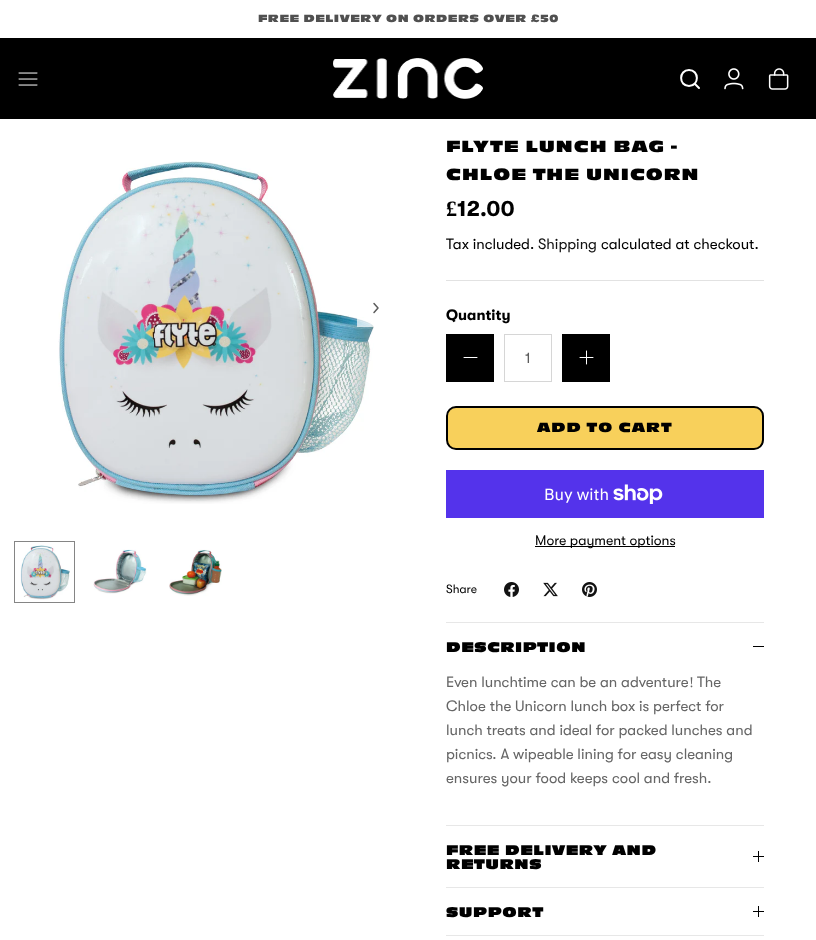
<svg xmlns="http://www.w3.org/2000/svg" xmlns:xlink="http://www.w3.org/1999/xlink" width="816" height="940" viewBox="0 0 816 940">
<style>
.cls-1{font:500 11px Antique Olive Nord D;letter-spacing:0.6px;fill:#505050}
.cls-2{font:500 17px Antique Olive Nord D;letter-spacing:1px;fill:#000000}
.cls-3{font:bold 22px Liberation Serif;fill:#000000}
.cls-4{font:bold 22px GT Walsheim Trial;fill:#000000}
.cls-5{font:15px GT Walsheim Trial;fill:#000000}
.cls-6{font:15px GT Walsheim Trial;fill:#121212}
.cls-7{font:bold 15px GT Walsheim Trial;fill:#000000}
.cls-8{font:15px GT Walsheim Trial;fill:#5c5c5c}
.cls-9{font:500 14px Antique Olive Nord D;letter-spacing:1px;fill:#000000}
.cls-10{font:16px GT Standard;fill:#ffffff}
.cls-11{font:14px GT Walsheim Trial;fill:#000000}
.cls-12{font:12px GT Walsheim Trial;fill:#000000}
.cls-13{font:bold 14px Antique Olive Nord D;letter-spacing:1px;fill:#000000}
.cls-14{font:15px GT Walsheim Trial;fill:#666666}
.cls-15{font:15px Liberation Serif;fill:#666666}
</style>
<rect width="100%" height="100%" fill="#ffffff"/>
<rect fill="#000000" x="0" y="38" width="816" height="81"/>
<image xlink:href="image0.png" x="18" y="72" width="20" height="14"/>
<image xlink:href="image1.png" x="333" y="58" width="150" height="41"/>
<path fill="none" stroke="#ffffff" stroke-width="2" stroke-linecap="round" stroke-linejoin="round" d="M689 86C699.5 86 699.5 70 689 70C678.5 70 678.5 86 689 86ZM699 88L695.5 84.5"/>
<image xlink:href="image2.png" x="724" y="68" width="20" height="22"/>
<image xlink:href="image3.png" x="768" y="68" width="21" height="22"/>
<image xlink:href="image4.png" x="58" y="161" width="316" height="343"/>
<path fill="none" stroke="#5c5c5c" stroke-width="1.5" stroke-linecap="round" stroke-linejoin="round" d="M374 312.5L378 308L374 303.5"/>
<rect fill="#ffffff" fill-opacity="0.7" x="357" y="318" width="17" height="9"/>
<image xlink:href="image5.png" x="20" y="545" width="50" height="55"/>
<rect fill="none" stroke="#858585" x="14.5" y="541.5" width="60" height="61"/>
<image xlink:href="image6.png" x="93" y="549" width="54" height="45"/>
<image xlink:href="image7.png" x="169" y="549" width="53" height="47"/>
<rect fill="#e2e2e2" x="446" y="280" width="318" height="1"/>
<rect fill="#000000" x="446" y="334" width="48" height="48"/>
<path fill="none" stroke="#ffffff" stroke-linecap="round" stroke-linejoin="round" d="M464 357.5H477"/>
<rect fill="none" stroke="#d6d6d6" x="504.5" y="334.5" width="47" height="47"/>
<rect fill="#000000" x="562" y="334" width="48" height="48"/>
<path fill="none" stroke="#ffffff" stroke-linecap="round" stroke-linejoin="round" d="M586.5 351V364M580 357.5H593"/>
<rect fill="#f8d05b" stroke="#000000" stroke-width="2" x="447" y="407" width="316" height="42" rx="9"/>
<rect fill="#5433eb" x="446" y="470" width="318" height="48"/>
<image xlink:href="image8.png" x="613" y="484" width="50" height="20"/>
<rect fill="#000000" x="535" y="546" width="140" height="1"/>
<image xlink:href="image9.png" x="504" y="582" width="15" height="15"/>
<image xlink:href="image10.png" x="543" y="582" width="15" height="15"/>
<image xlink:href="image11.png" x="582" y="582" width="15" height="15"/>
<rect fill="#e7e7e7" x="446" y="622" width="318" height="1"/>
<rect fill="#e7e7e7" x="446" y="825" width="318" height="1"/>
<rect fill="#000000" x="753" y="646" width="11" height="1"/>
<rect fill="#e7e7e7" x="446" y="887" width="318" height="1"/>
<rect fill="#000000" x="758" y="851" width="1" height="11"/>
<rect fill="#000000" x="753" y="856" width="11" height="1"/>
<rect fill="#e7e7e7" x="446" y="935" width="318" height="1"/>
<rect fill="#000000" x="758" y="906" width="1" height="11"/>
<rect fill="#000000" x="753" y="911" width="11" height="1"/>
<text class="cls-1" x="258" y="22">FREE DELIVERY ON ORDERS OVER £50</text>
<text class="cls-2"><tspan x="446" y="152">FLYTE LUNCH BAG -</tspan><tspan x="446" y="180">CHLOE THE UNICORN</tspan></text>
<text class="cls-3" x="446" y="216">£</text>
<text class="cls-4" x="457" y="216">12.00</text>
<text class="cls-5" x="446" y="249">Tax included.</text>
<text class="cls-6" x="538" y="249">Shipping</text>
<text class="cls-5" x="601" y="249">calculated at checkout.</text>
<text class="cls-7" x="446" y="320">Quantity</text>
<text class="cls-8" x="525" y="363">1</text>
<text class="cls-9" x="537" y="432">ADD TO CART</text>
<text class="cls-10" x="544" y="500">Buy with</text>
<text class="cls-11" x="535" y="545">More payment options</text>
<text class="cls-12" x="446" y="593">Share</text>
<text class="cls-13" x="446" y="652">DESCRIPTION</text>
<text class="cls-14" x="446" y="687">Even lunchtime can be an adventure</text>
<text class="cls-15" x="689" y="687">!</text>
<text class="cls-14" x="697" y="687">The</text>
<text class="cls-14"><tspan x="446" y="711">Chloe the Unicorn lunch box is perfect for</tspan><tspan x="446" y="735">lunch treats and ideal for packed lunches and</tspan><tspan x="446" y="759">picnics. A wipeable lining for easy cleaning</tspan><tspan x="446" y="783">ensures your food keeps cool and fresh.</tspan></text>
<text class="cls-13"><tspan x="446" y="855">FREE DELIVERY AND</tspan><tspan x="446" y="869">RETURNS</tspan></text>
<text class="cls-13" x="446" y="917">SUPPORT</text>
</svg>
